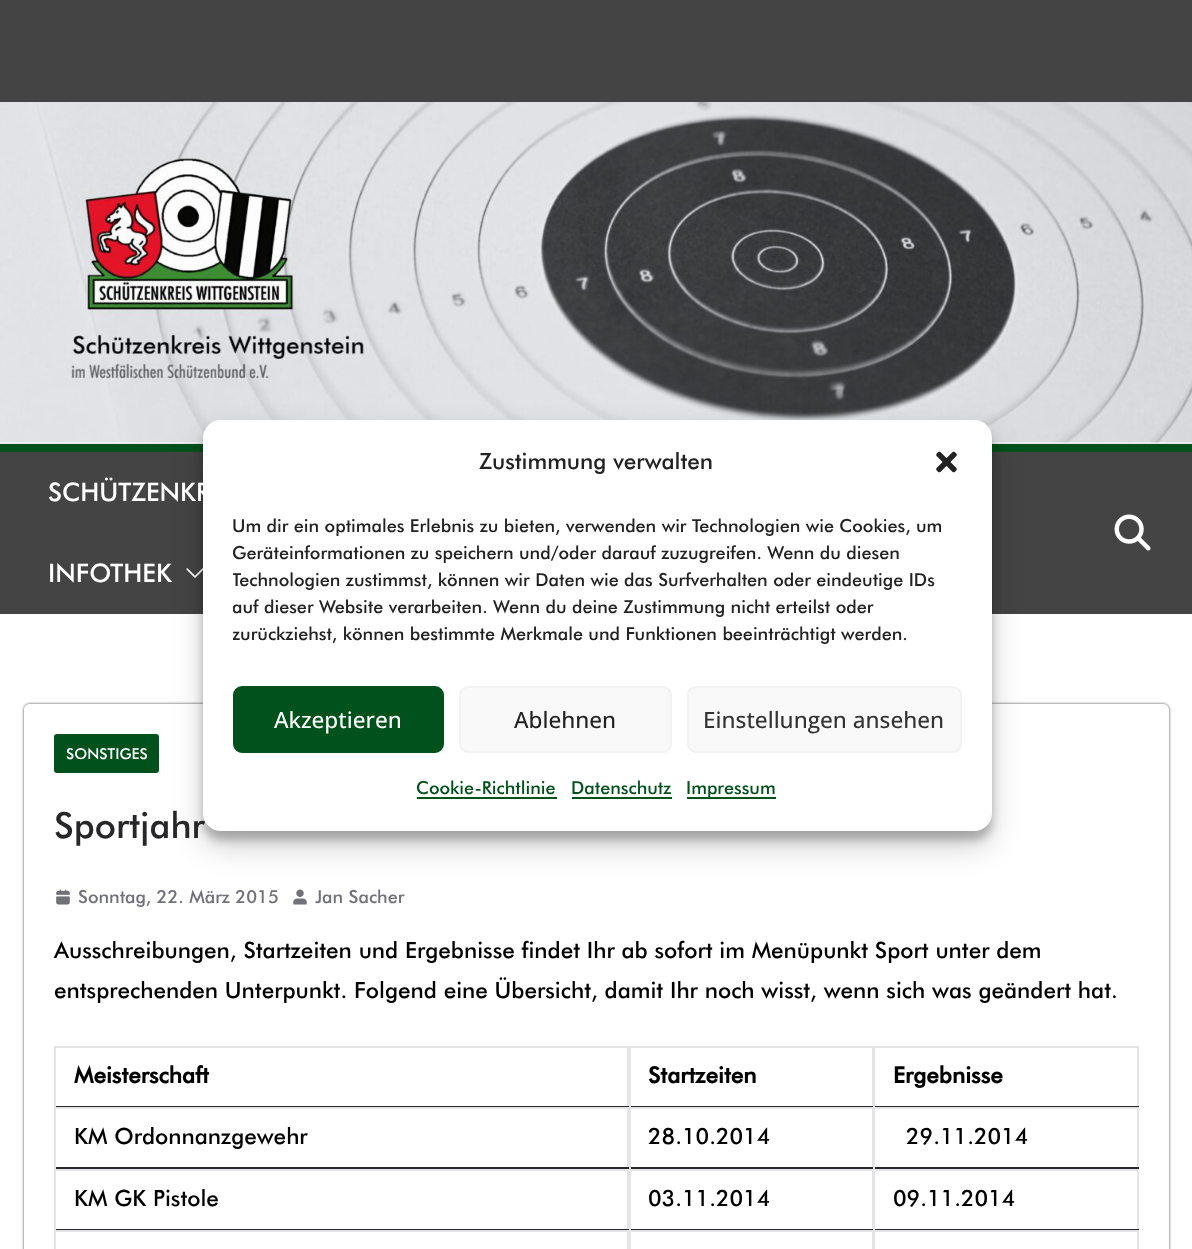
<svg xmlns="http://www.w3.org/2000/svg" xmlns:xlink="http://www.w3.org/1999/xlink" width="1192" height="1249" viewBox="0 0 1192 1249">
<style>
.cls-1{font:500 25.5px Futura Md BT;fill:#ffffff}
.cls-2{font:500 15px Futura Md BT;fill:#ffffff}
.cls-3{font:500 36px Futura Md BT;fill:#27272a}
.cls-4{font:500 18px Futura Md BT;fill:#222222}
.cls-5{font:500 18px Futura Md BT;fill:#00511b}
.cls-6{font:500 22.5px Open Sans;fill:#333333}
.cls-7{font:500 22.5px Open Sans;fill:#222222}
.cls-8{font:500 22.5px Open Sans;fill:#ffffff}
.cls-9{font:500 22.5px Futura Md BT;fill:#222222}
.cls-10{font:500 18px Futura Md BT;fill:#71717a}
.cls-11{font:500 22.5px Futura Md BT;fill:#000000}
.cls-12{font:bold 22.5px Futura Md BT;fill:#000000}
</style>
<defs>
<clipPath id="clip1"><path d="M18 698H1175V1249H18ZM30 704H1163C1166.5 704 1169 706.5 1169 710V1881C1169 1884.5 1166.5 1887 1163 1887H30C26.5 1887 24 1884.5 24 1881V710C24 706.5 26.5 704 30 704Z" clip-rule="evenodd"/></clipPath>
<clipPath id="clip2"><rect x="233" y="513" width="729" height="143"/></clipPath>
</defs>
<rect width="100%" height="100%" fill="#ffffff"/>
<image xlink:href="image1.png" x="0" y="102" width="1192" height="341"/>
<rect fill="#e4e4e7" x="0" y="443" width="1192" height="1"/>
<rect fill="#444444" x="0" y="452" width="1192" height="162"/>
<rect fill="#00511b" x="0" y="444" width="1192" height="8"/>
<image xlink:href="image2.png" x="186" y="568" width="17" height="10"/>
<rect fill="#000000" fill-opacity="0.23" filter="blur(4.5px)" x="203" y="429" width="789" height="411" rx="18"/>
<g clip-path="url(#clip1)">
<rect fill="#444444" filter="blur(1.5px)" x="24" y="704" width="1145" height="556" rx="6"/>
</g>
<rect fill="#00511b" x="54" y="734" width="105" height="39" rx="3"/>
<image xlink:href="image5.png" x="293" y="889" width="14" height="16"/>
<rect fill="#000000" fill-opacity="0.19" filter="blur(15px)" x="203" y="435" width="789" height="411" rx="18"/>
<rect fill="#444444" x="0" y="0" width="1192" height="102"/>
<image xlink:href="image3.png" x="1114" y="514" width="37" height="37"/>
<image xlink:href="image4.png" x="56" y="889" width="14" height="16"/>
<rect fill="#e4e4e7" x="54" y="1046" width="1085" height="2"/>
<rect fill="#e4e4e7" x="627" y="1046" width="2" height="61"/>
<rect fill="#27272a" x="54" y="1106" width="575" height="1"/>
<rect fill="#e4e4e7" x="54" y="1046" width="2" height="61"/>
<rect fill="#e4e4e7" x="872" y="1046" width="1" height="61"/>
<rect fill="#27272a" x="629" y="1106" width="244" height="1"/>
<rect fill="#e4e4e7" x="629" y="1046" width="2" height="61"/>
<rect fill="#e4e4e7" x="1137" y="1046" width="2" height="61"/>
<rect fill="#27272a" x="873" y="1106" width="266" height="1"/>
<rect fill="#e4e4e7" x="873" y="1046" width="2" height="61"/>
<rect fill="#e4e4e7" x="54" y="1107" width="1085" height="2"/>
<rect fill="#e4e4e7" x="627" y="1107" width="2" height="62"/>
<rect fill="#27272a" x="54" y="1167" width="575" height="2"/>
<rect fill="#e4e4e7" x="54" y="1107" width="2" height="62"/>
<rect fill="#e4e4e7" x="872" y="1107" width="1" height="62"/>
<rect fill="#27272a" x="629" y="1167" width="244" height="2"/>
<rect fill="#e4e4e7" x="629" y="1107" width="2" height="62"/>
<rect fill="#e4e4e7" x="1137" y="1107" width="2" height="62"/>
<rect fill="#27272a" x="873" y="1167" width="266" height="2"/>
<rect fill="#e4e4e7" x="873" y="1107" width="2" height="62"/>
<rect fill="#e4e4e7" x="54" y="1169" width="1085" height="2"/>
<rect fill="#e4e4e7" x="627" y="1169" width="2" height="61"/>
<rect fill="#27272a" x="54" y="1229" width="575" height="1"/>
<rect fill="#e4e4e7" x="54" y="1169" width="2" height="61"/>
<rect fill="#e4e4e7" x="872" y="1169" width="1" height="61"/>
<rect fill="#27272a" x="629" y="1229" width="244" height="1"/>
<rect fill="#e4e4e7" x="629" y="1169" width="2" height="61"/>
<rect fill="#e4e4e7" x="1137" y="1169" width="2" height="61"/>
<rect fill="#27272a" x="873" y="1229" width="266" height="1"/>
<rect fill="#e4e4e7" x="873" y="1169" width="2" height="61"/>
<rect fill="#e4e4e7" x="54" y="1230" width="1085" height="2"/>
<rect fill="#e4e4e7" x="627" y="1230" width="4" height="19"/>
<rect fill="#e4e4e7" x="54" y="1230" width="2" height="19"/>
<rect fill="#e4e4e7" x="872" y="1230" width="3" height="19"/>
<rect fill="#e4e4e7" x="1137" y="1230" width="2" height="19"/>
<text class="cls-1" x="48" y="501">SCHÜTZENKR</text>
<text class="cls-1" x="48" y="582">INFOTHEK</text>
<text class="cls-2" x="66" y="759">SONSTIGES</text>
<text class="cls-3" x="54" y="838">Sportjahr</text>
<rect fill="#ffffff" x="203" y="420" width="789" height="411" rx="18"/>
<g clip-path="url(#clip2)">
<text class="cls-4" x="232" y="640">zurückziehst, können bestimmte Merkmale und Funktionen beeinträchtigt werden.</text>
<text class="cls-4" x="232" y="613">auf dieser Website verarbeiten. Wenn du deine Zustimmung nicht erteilst oder</text>
<text class="cls-4" x="232" y="586">Technologien zustimmst, können wir Daten wie das Surfverhalten oder eindeutige IDs</text>
<text class="cls-4" x="232" y="559">Geräteinformationen zu speichern und/oder darauf zuzugreifen. Wenn du diesen</text>
</g>
<text class="cls-4" x="232" y="532">Um dir ein optimales Erlebnis zu bieten, verwenden wir Technologien wie Cookies, um</text>
<image xlink:href="image0.png" x="936" y="451" width="21" height="22"/>
<rect fill="#00511b" x="687" y="797" width="89" height="2"/>
<text class="cls-5" x="686" y="794">Impressum</text>
<text class="cls-5" x="571" y="794">Datenschutz</text>
<rect fill="#00511b" x="572" y="797" width="100" height="2"/>
<text class="cls-5" x="416" y="794">Cookie-Richtlinie</text>
<rect fill="#00511b" x="417" y="797" width="140" height="2"/>
<rect fill="#f9f9f9" stroke="#f2f2f2" stroke-width="2" x="688" y="687" width="273" height="65" rx="8"/>
<text class="cls-6" x="703" y="728">Einstellungen ansehen</text>
<rect fill="#f9f9f9" stroke="#f2f2f2" stroke-width="2" x="460" y="687" width="211" height="65" rx="8"/>
<text class="cls-7" x="514" y="728">Ablehnen</text>
<rect fill="#00511b" stroke="#00511b" stroke-width="2" x="234" y="687" width="209" height="65" rx="8"/>
<text class="cls-8" x="274" y="728">Akzeptieren</text>
<text class="cls-9" x="479" y="469">Zustimmung verwalten</text>
<text class="cls-10" x="78" y="903">Sonntag, 22. März 2015</text>
<text class="cls-10" x="315" y="903">Jan Sacher</text>
<text class="cls-11"><tspan x="54" y="958">Ausschreibungen, Startzeiten und Ergebnisse findet Ihr ab sofort im Menüpunkt Sport unter dem</tspan><tspan x="54" y="998">entsprechenden Unterpunkt. Folgend eine Übersicht, damit Ihr noch wisst, wenn sich was geändert hat.</tspan></text>
<text class="cls-12" x="74" y="1083">Meisterschaft</text>
<text class="cls-12" x="648" y="1083">Startzeiten</text>
<text class="cls-12" x="893" y="1083">Ergebnisse</text>
<text class="cls-11" x="74" y="1144">KM Ordonnanzgewehr</text>
<text class="cls-11" x="648" y="1144">28.10.2014</text>
<text class="cls-11" x="906" y="1144">29.11.2014</text>
<text class="cls-11" x="74" y="1206">KM GK Pistole</text>
<text class="cls-11" x="648" y="1206">03.11.2014</text>
<text class="cls-11" x="893" y="1206">09.11.2014</text>
</svg>
